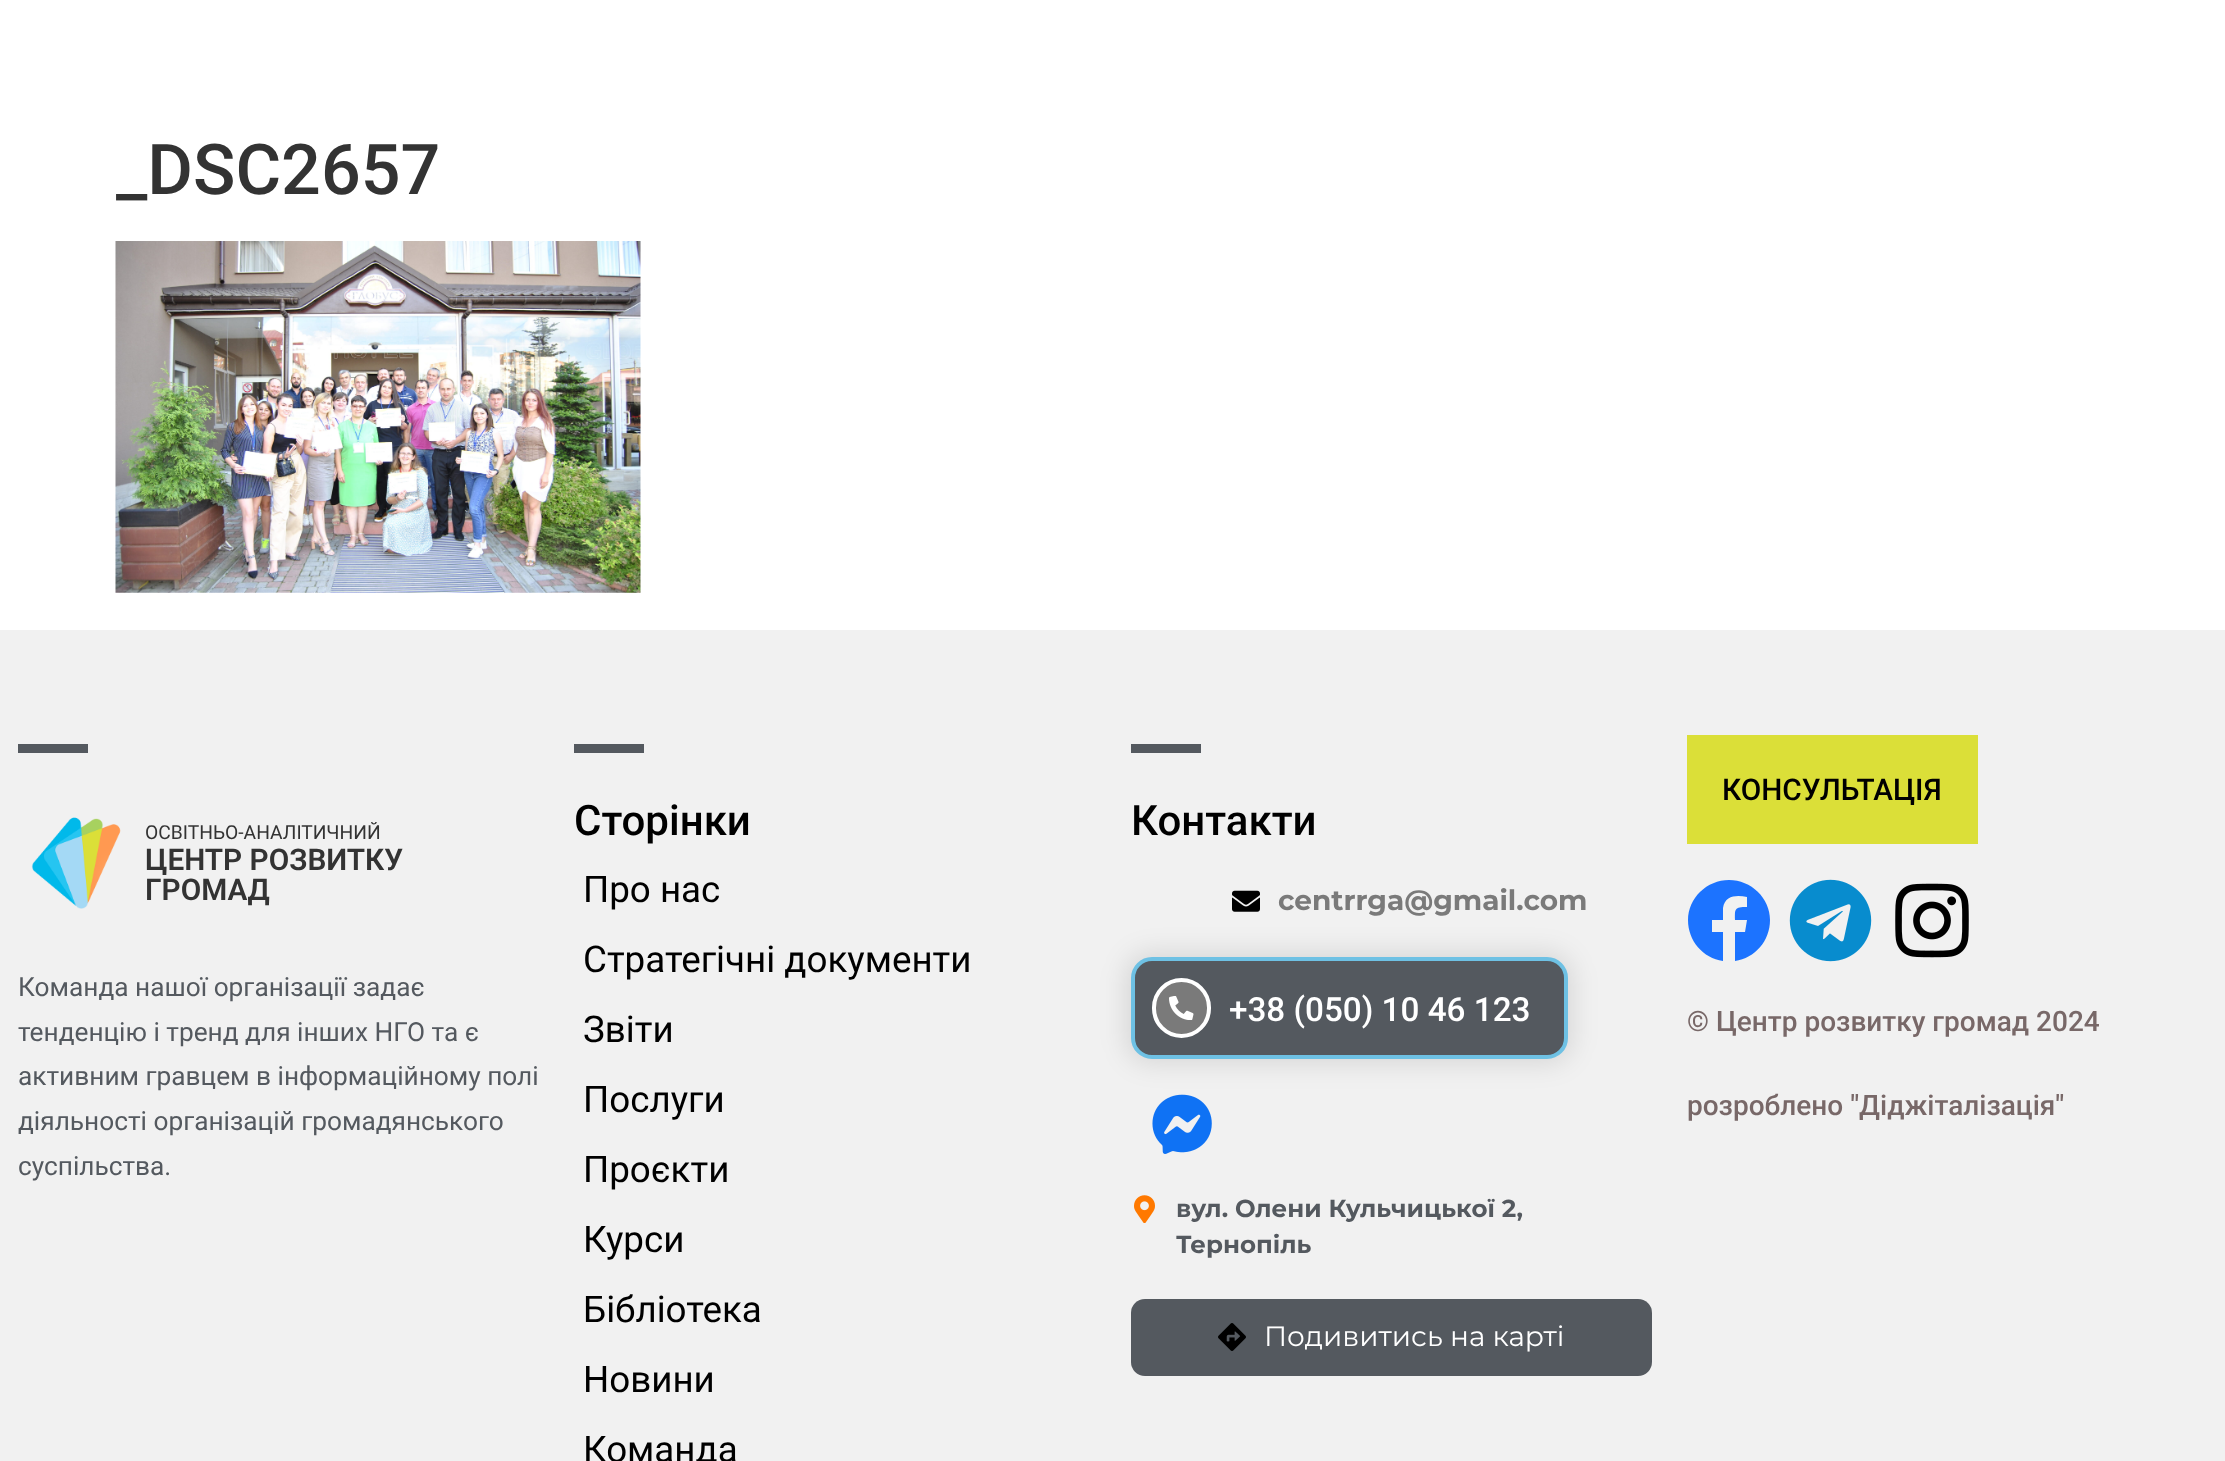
<svg xmlns="http://www.w3.org/2000/svg" xmlns:xlink="http://www.w3.org/1999/xlink" width="2225" height="1461" viewBox="0 0 2225 1461">
<style>
.cls-1{font:500 70px Roboto;fill:#333333}
.cls-2{font:19.25px Roboto;fill:#333333}
.cls-3{font:600 29.75px Roboto;fill:#333333}
.cls-4{font:26.25px Roboto;fill:#54595f}
.cls-5{font:500 42px Roboto;fill:#000000}
.cls-6{font:36.75px Roboto;fill:#000000}
.cls-7{font:bold 28px Montserrat;fill:#7a7a7a}
.cls-8{font:500 33.25px Roboto;fill:#ffffff}
.cls-9{font:bold 24.5px Montserrat;fill:#54595f}
.cls-10{font:28px Montserrat;fill:#ffffff}
.cls-11{font:500 29.75px Roboto;fill:#000000}
.cls-12{font:500 28px Roboto;fill:#786868}
</style>
<rect width="100%" height="100%" fill="#ffffff"/>
<image xlink:href="image0.png" x="115" y="241" width="526" height="352"/>
<rect fill="#f1f1f1" x="0" y="630" width="2225" height="831"/>
<rect fill="#54595f" x="18" y="744" width="70" height="9"/>
<image xlink:href="image1.png" x="31" y="817" width="90" height="92"/>
<rect fill="#54595f" x="574" y="744" width="70" height="9"/>
<rect fill="#54595f" x="1131" y="744" width="70" height="9"/>
<image xlink:href="image2.png" x="1232" y="890" width="28" height="22"/>
<rect fill="#000000" fill-opacity="0.1" filter="blur(13px)" x="1125" y="952" width="448" height="112" rx="26"/>
<rect fill="#54595f" stroke="#6ec1e4" stroke-width="4" x="1133" y="959" width="433" height="98" rx="19"/>
<rect fill="#7a7a7a" stroke="#ffffff" stroke-width="4" x="1154" y="980" width="55" height="56" rx="27.5"/>
<image xlink:href="image3.png" x="1169" y="996" width="25" height="24"/>
<image xlink:href="image4.png" x="1152" y="1094" width="60" height="60"/>
<image xlink:href="image5.png" x="1134" y="1195" width="21" height="28"/>
<rect fill="#54595f" x="1131" y="1299" width="521" height="77" rx="14"/>
<image xlink:href="image6.png" x="1218" y="1323" width="28" height="28"/>
<rect fill="#dbdf38" x="1687" y="735" width="291" height="109"/>
<path fill="#1c73ff" d="M1770 920C1770 898 1751 880 1729 880C1707 880 1688 898 1688 920C1688 941 1703 958 1723 961V932H1712V920H1723V908C1725 895 1737 895 1747 897V907C1734 907 1735 909 1735 920H1747L1745 932H1735V961C1755 958 1770 941 1770 920Z"/>
<image xlink:href="image7.png" x="1789" y="879" width="83" height="83"/>
<image xlink:href="image8.png" x="1895" y="883" width="74" height="75"/>
<text class="cls-1" x="116" y="194">_DSC2657</text>
<text class="cls-2" x="145" y="839">ОСВІТНЬО-АНАЛІТИЧНИЙ</text>
<text class="cls-3"><tspan x="145" y="870">ЦЕНТР РОЗВИТКУ</tspan><tspan x="145" y="900">ГРОМАД</tspan></text>
<text class="cls-4"><tspan x="18" y="996">Команда нашої організації задає</tspan><tspan x="18" y="1041">тенденцію і тренд для інших НГО та є</tspan><tspan x="18" y="1085">активним гравцем в інформаційному полі</tspan><tspan x="18" y="1130">діяльності організацій громадянського</tspan><tspan x="18" y="1175">суспільства.</tspan></text>
<text class="cls-5" x="574" y="835">Сторінки</text>
<text class="cls-6"><tspan x="583" y="902">Про нас</tspan><tspan x="583" y="972">Стратегічні документи</tspan><tspan x="583" y="1042">Звіти</tspan><tspan x="583" y="1112">Послуги</tspan><tspan x="583" y="1182">Проєкти</tspan><tspan x="583" y="1252">Курси</tspan><tspan x="583" y="1322">Бібліотека</tspan><tspan x="583" y="1392">Новини</tspan><tspan x="583" y="1462">Команда</tspan></text>
<text class="cls-5" x="1131" y="835">Контакти</text>
<text class="cls-7" x="1278" y="910">centrrga@gmail.com</text>
<text class="cls-8" x="1229" y="1021">+38 (050) 10 46 123</text>
<text class="cls-9"><tspan x="1176" y="1217">вул. Олени Кульчицької 2,</tspan><tspan x="1176" y="1253">Тернопіль</tspan></text>
<text class="cls-10" x="1264" y="1346">Подивитись на карті</text>
<text class="cls-11" x="1722" y="800">КОНСУЛЬТАЦІЯ</text>
<text class="cls-12" x="1687" y="1031">© Центр розвитку громад 2024</text>
<text class="cls-12" x="1687" y="1115">розроблено "Діджіталізація"</text>
</svg>
